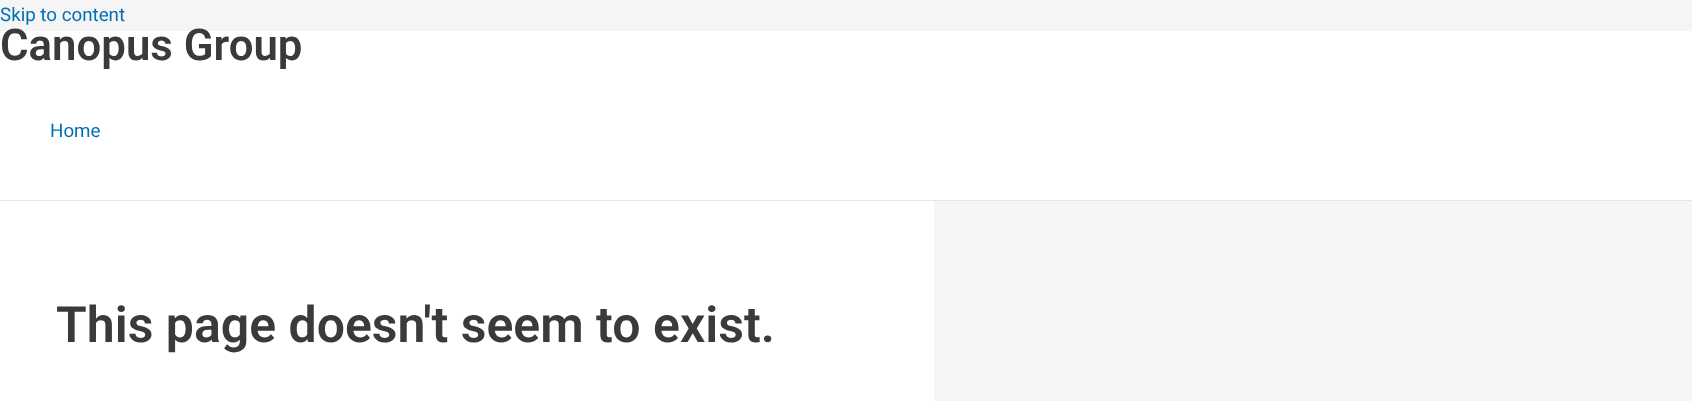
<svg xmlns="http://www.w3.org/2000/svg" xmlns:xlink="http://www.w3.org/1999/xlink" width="1692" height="401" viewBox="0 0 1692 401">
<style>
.cls-1{font:18.75px Roboto;fill:#0170b9}
.cls-2{font:600 43.75px Roboto;fill:#3a3a3a}
.cls-3{font:600 50px Roboto;fill:#3a3a3a}
</style>
<rect width="100%" height="100%" fill="#f5f5f5"/>
<rect fill="#ffffff" x="0" y="31" width="1692" height="169"/>
<rect fill="#e5e5e5" x="0" y="200" width="1692" height="1"/>
<rect fill="#ffffff" x="0" y="201" width="934" height="200"/>
<text class="cls-1" x="0" y="21">Skip to content</text>
<text class="cls-2" x="0" y="60">Canopus Group</text>
<text class="cls-1" x="50" y="137">Home</text>
<text class="cls-3" x="56" y="342">This page doesn't seem to exist.</text>
</svg>
